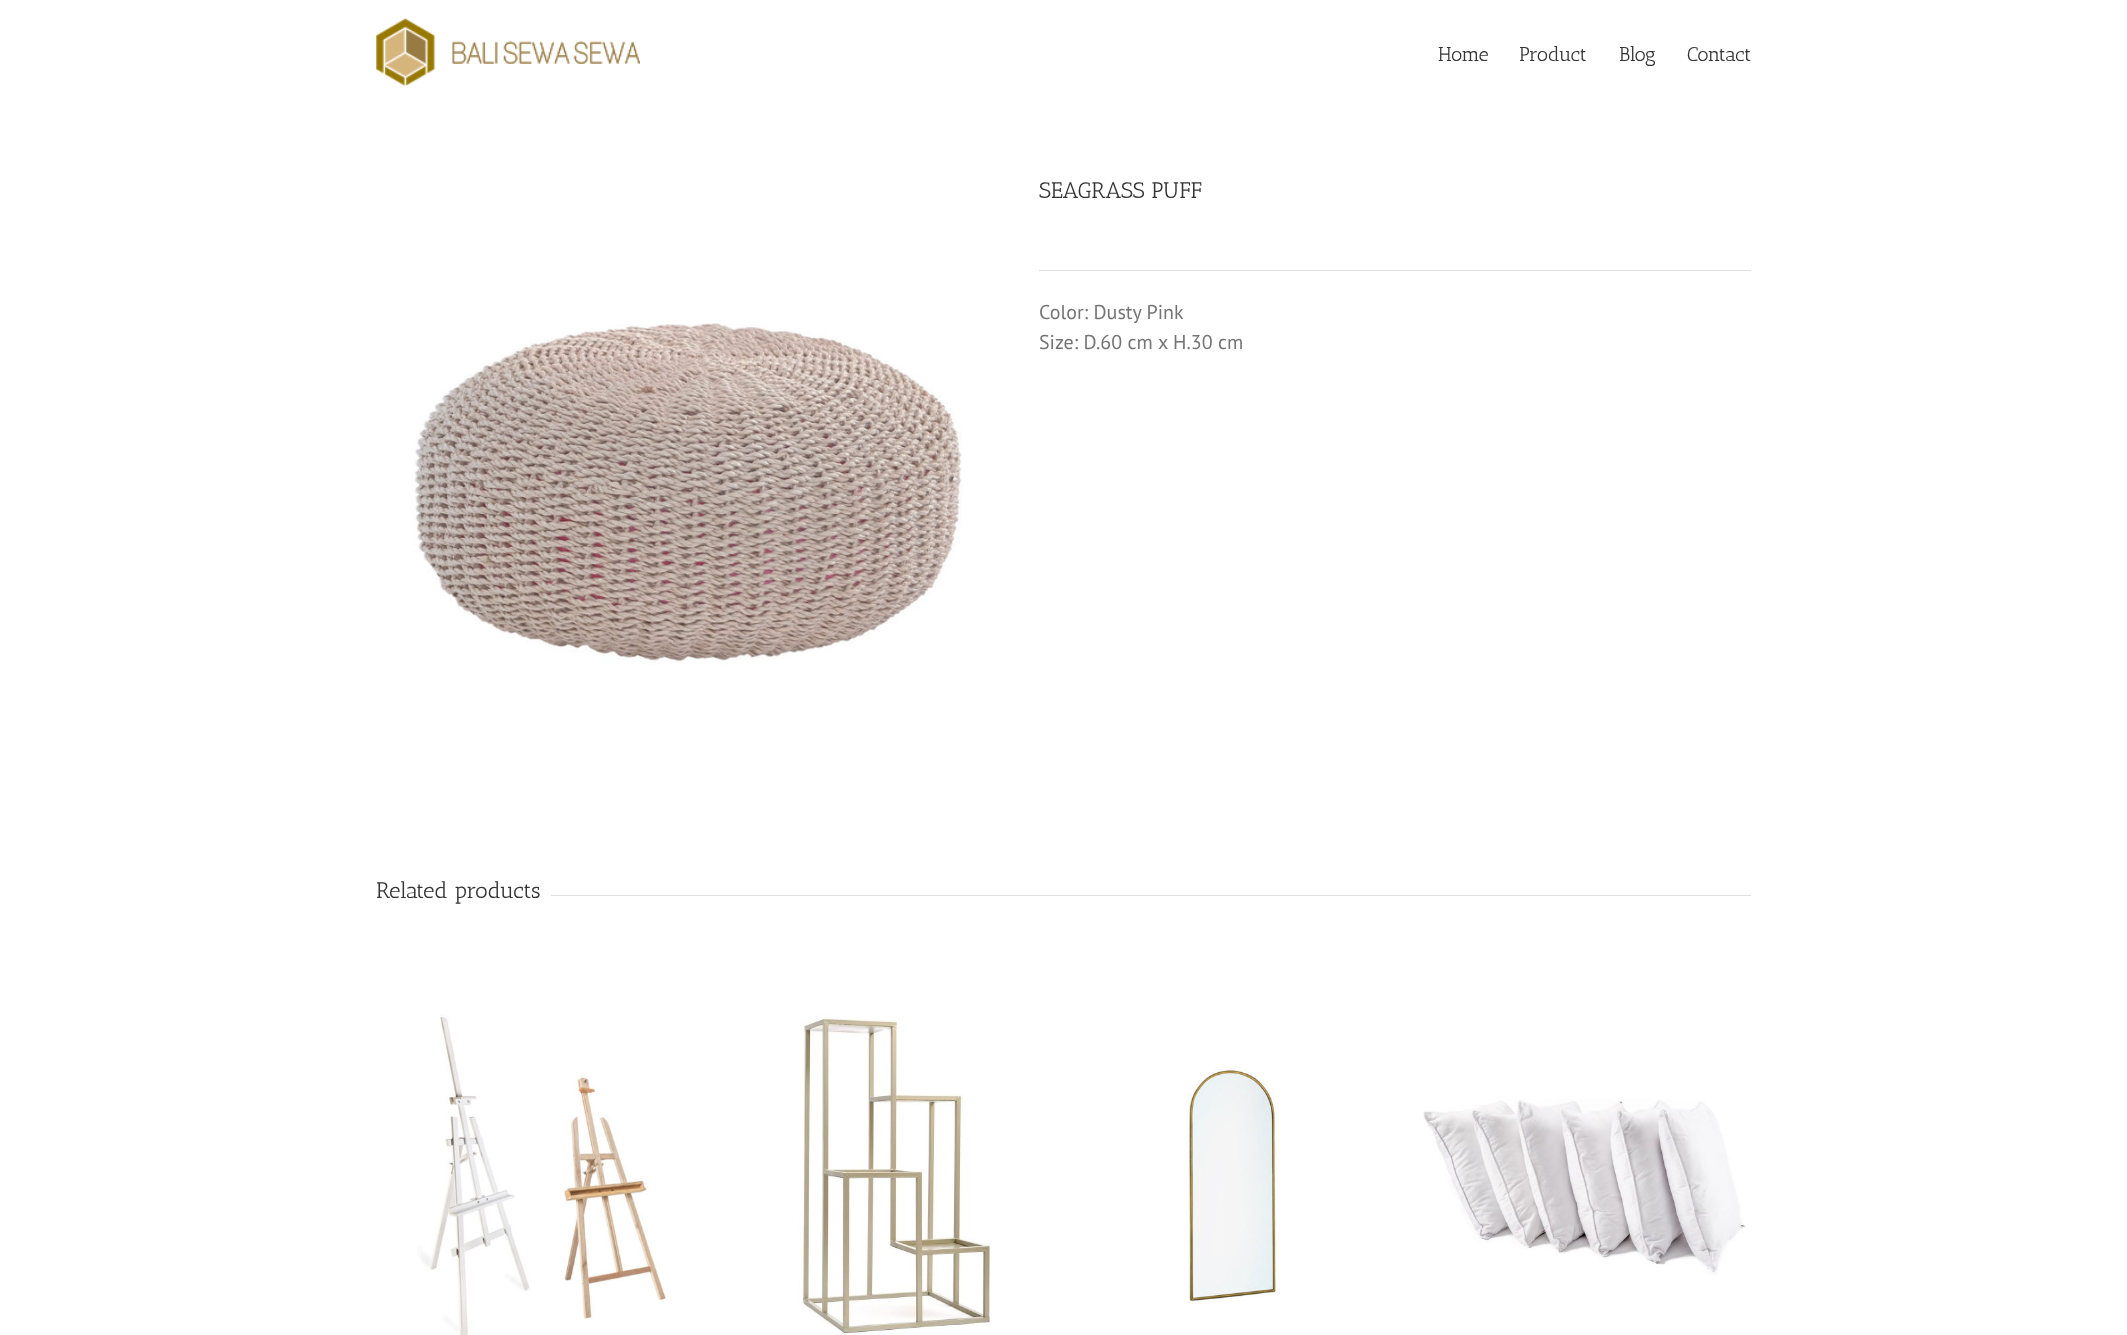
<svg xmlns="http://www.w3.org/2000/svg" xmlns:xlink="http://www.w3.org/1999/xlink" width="2127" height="1335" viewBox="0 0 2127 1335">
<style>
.cls-1{font:20px Antic Slab;fill:#333333}
.cls-2{font:22.5px Antic Slab;fill:#333333}
.cls-3{font:20px PT Sans;fill:#747474}
</style>
<rect width="100%" height="100%" fill="#ffffff"/>
<image xlink:href="image0.png" x="376" y="18" width="264" height="69"/>
<rect fill="#e0dede" x="1039" y="270" width="712" height="1"/>
<image xlink:href="image1.png" x="412" y="323" width="550" height="342"/>
<rect fill="#e0dede" x="551" y="895" width="1200" height="1"/>
<image xlink:href="image2.png" x="417" y="1014" width="253" height="321"/>
<image xlink:href="image3.png" x="799" y="1014" width="192" height="321"/>
<image xlink:href="image4.png" x="1188" y="1067" width="91" height="236"/>
<image xlink:href="image5.png" x="1423" y="1099" width="323" height="176"/>
<text class="cls-1" x="1438" y="61">Home</text>
<text class="cls-1" x="1519" y="61">Product</text>
<text class="cls-1" x="1619" y="61">Blog</text>
<text class="cls-1" x="1687" y="61">Contact</text>
<text class="cls-2" x="1039" y="198">SEAGRASS PUFF</text>
<text class="cls-3"><tspan x="1039" y="319">Color: Dusty Pink</tspan><tspan x="1039" y="349">Size: D.60 cm x H.30 cm</tspan></text>
<text class="cls-2" x="376" y="898">Related products</text>
</svg>
